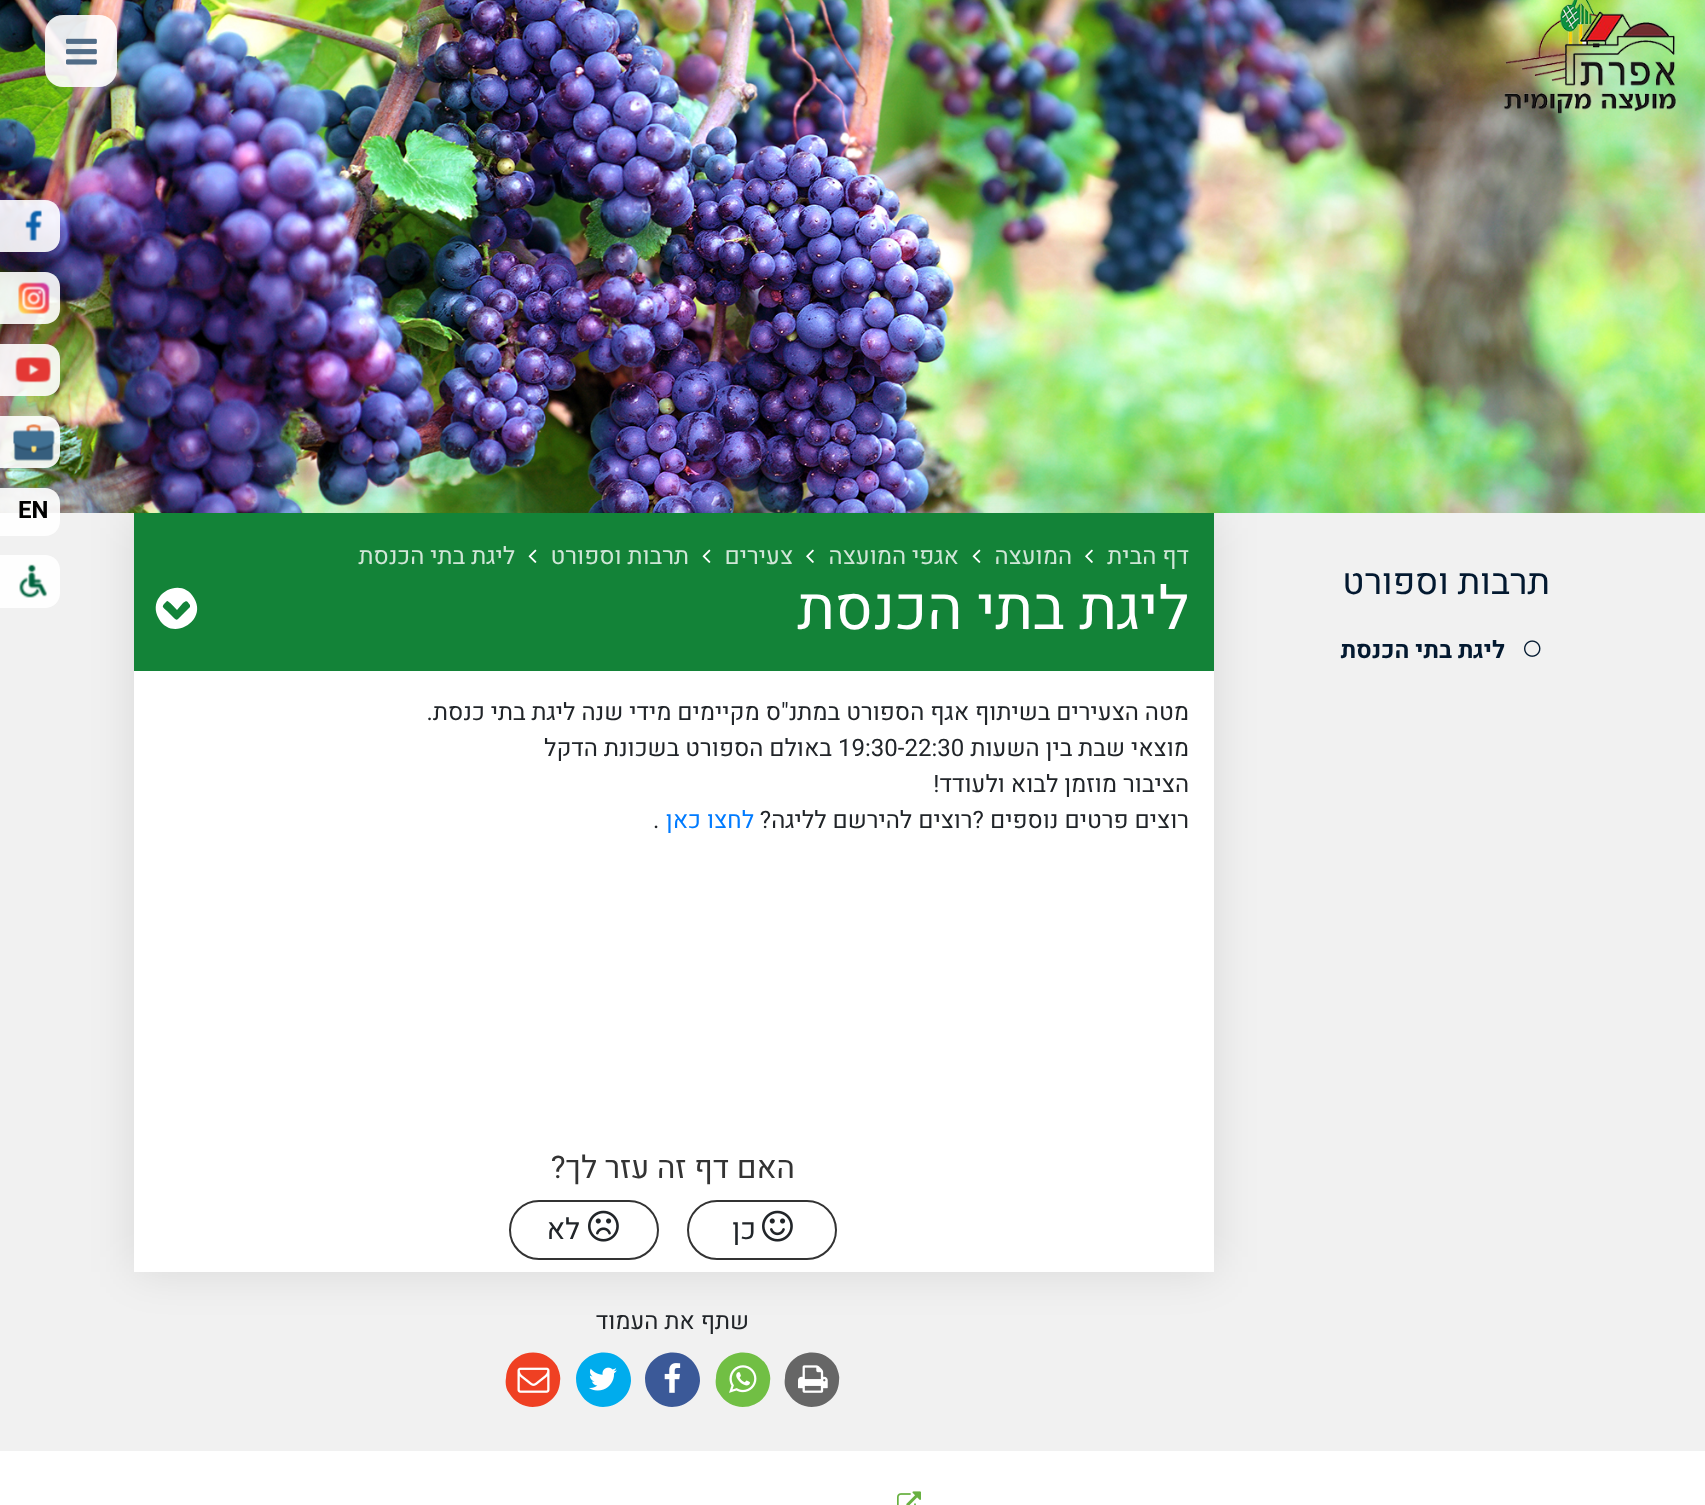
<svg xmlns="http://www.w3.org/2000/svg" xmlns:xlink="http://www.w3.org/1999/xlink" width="1705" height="1505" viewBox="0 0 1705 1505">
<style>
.cls-1{font:bold 24px Heebo;fill:#000000}
.cls-2{font:36px Heebo;direction:rtl;fill:#031930}
.cls-3{font:bold 24px Heebo;direction:rtl;fill:#031930}
.cls-4{font:24px Heebo;direction:rtl;fill:#d0e6d7}
.cls-5{font:60px Heebo;direction:rtl;fill:#ffffff}
.cls-6{font:24px Heebo;direction:rtl;fill:#212529}
.cls-7{font:24px Heebo;fill:#212529}
.cls-8{font:24px Heebo;direction:rtl;fill:#007bff}
.cls-9{font:31.25px Heebo;direction:rtl;fill:#333333}
.cls-10{font:29px Heebo;direction:rtl;fill:#212529}
</style>
<rect width="100%" height="100%" fill="#f1f1f1"/>
<image xlink:href="image0.png" x="0" y="0" width="1705" height="513"/>
<image xlink:href="image1.png" x="1504" y="0" width="172" height="114"/>
<rect fill="#ffffff" fill-opacity="0.9" x="45" y="15" width="72" height="72" rx="18"/>
<image xlink:href="image2.png" x="66" y="38" width="31" height="27"/>
<path fill="#ffffff" fill-opacity="0.9" d="M0 200H45C53.5 200 60 206.5 60 215V237C60 245.5 53.5 252 45 252H0Z"/>
<image xlink:href="image3.png" x="25" y="210" width="17" height="31"/>
<path fill="#ffffff" fill-opacity="0.9" d="M0 272H45C53.5 272 60 278.5 60 287V309C60 317.5 53.5 324 45 324H0Z"/>
<image xlink:href="image4.png" x="18" y="282" width="32" height="33"/>
<path fill="#ffffff" fill-opacity="0.9" d="M0 344H45C53.5 344 60 350.5 60 359V381C60 389.5 53.5 396 45 396H0Z"/>
<image xlink:href="image5.png" x="15" y="357" width="36" height="26"/>
<path fill="#ffffff" fill-opacity="0.9" d="M0 416H45C53.5 416 60 422.5 60 431V453C60 461.5 53.5 468 45 468H0Z"/>
<image xlink:href="image6.png" x="13" y="424" width="42" height="37"/>
<path fill="#ffffff" fill-opacity="0.9" d="M0 488H45C53.5 488 60 494.5 60 503V521C60 529.5 53.5 536 45 536H0Z"/>
<path fill="#fefefe" d="M0 555H45C53.5 555 60 561.5 60 570V593C60 601.5 53.5 608 45 608H0Z"/>
<image xlink:href="image7.png" x="19" y="564" width="29" height="34"/>
<image xlink:href="image8.png" x="1524" y="640" width="17" height="17"/>
<rect fill="#000000" fill-opacity="0.1" filter="blur(22.5px)" x="134" y="513" width="1080" height="759"/>
<rect fill="#ffffff" x="134" y="671" width="1080" height="601"/>
<rect fill="#138338" x="134" y="513" width="1080" height="158"/>
<image xlink:href="image9.png" x="1085" y="549" width="8" height="14"/>
<image xlink:href="image10.png" x="972" y="549" width="9" height="14"/>
<image xlink:href="image9.png" x="806" y="549" width="8" height="14"/>
<image xlink:href="image10.png" x="702" y="549" width="9" height="14"/>
<image xlink:href="image10.png" x="528" y="549" width="9" height="14"/>
<path fill="#ffffff" d="M178 619L190 607V605C187 601 187 600 183 603L177 610C175 608 169 601 167 601L165 603C161 607 163 607 167 611L173 617C174 618 176 621 178 619ZM194 598C208 621 172 642 159 619C145 595 181 575 194 598Z"/>
<rect fill="none" stroke="#333333" stroke-width="2" x="688" y="1201" width="148" height="58" rx="29"/>
<image xlink:href="image11.png" x="762" y="1210" width="31" height="32"/>
<rect fill="none" stroke="#333333" stroke-width="2" x="510" y="1201" width="148" height="58" rx="29"/>
<image xlink:href="image12.png" x="588" y="1210" width="31" height="32"/>
<path fill="#666666" d="M836 1366C838 1371 840 1376 839 1381C838 1408 802 1417 788 1393C785 1389 784 1383 785 1378C786 1351 822 1343 836 1366Z"/>
<image xlink:href="image13.png" x="798" y="1365" width="30" height="28"/>
<path fill="#71bf44" d="M767 1366C769 1371 771 1376 770 1381C769 1408 733 1417 719 1393C716 1389 715 1383 716 1378C717 1351 753 1343 767 1366Z"/>
<image xlink:href="image14.png" x="729" y="1365" width="28" height="28"/>
<path fill="#3b5998" d="M696 1366C699 1371 700 1376 700 1381C698 1408 662 1417 649 1393C646 1389 645 1383 645 1378C647 1351 683 1343 696 1366Z"/>
<image xlink:href="image15.png" x="664" y="1363" width="17" height="30"/>
<path fill="#00aced" d="M627 1366C630 1371 631 1376 631 1381C629 1408 593 1417 580 1393C577 1389 576 1383 576 1378C578 1351 614 1343 627 1366Z"/>
<image xlink:href="image16.png" x="589" y="1367" width="28" height="24"/>
<path fill="#ef4023" d="M557 1366C559 1371 561 1376 560 1381C559 1408 523 1417 509 1393C506 1389 505 1383 506 1378C507 1351 543 1343 557 1366Z"/>
<image xlink:href="image17.png" x="517" y="1367" width="33" height="26"/>
<rect fill="#ffffff" x="0" y="1451" width="1705" height="54"/>
<image xlink:href="image18.png" x="897" y="1491" width="24" height="14"/>
<text class="cls-1" x="18" y="518">EN</text>
<text class="cls-2" x="1550" y="594">תרבות וספורט</text>
<text class="cls-3" x="1505" y="658">ליגת בתי הכנסת</text>
<text class="cls-4" x="1189" y="564">דף הבית</text>
<text class="cls-4" x="1072" y="564">המועצה</text>
<text class="cls-4" x="959" y="564">אגפי המועצה</text>
<text class="cls-4" x="793" y="564">צעירים</text>
<text class="cls-4" x="689" y="564">תרבות וספורט</text>
<text class="cls-4" x="515" y="564">ליגת בתי הכנסת</text>
<text class="cls-5" x="1189" y="629">ליגת בתי הכנסת</text>
<text class="cls-6"><tspan x="1189" y="720">מטה הצעירים בשיתוף אגף הספורט במתנ"ס מקיימים מידי שנה ליגת בתי כנסת.</tspan><tspan x="1189" y="756">מוצאי שבת בין השעות</tspan></text>
<text class="cls-7" x="838" y="756">19:30-22:30</text>
<text class="cls-6" x="832" y="756">באולם הספורט בשכונת הדקל</text>
<text class="cls-6"><tspan x="1189" y="792">הציבור מוזמן לבוא ולעודד!</tspan><tspan x="1189" y="828">רוצים פרטים נוספים ?רוצים להירשם לליגה?</tspan></text>
<text class="cls-8" x="754" y="828">לחצו כאן</text>
<text class="cls-7" x="653" y="828">.</text>
<text class="cls-9" x="795" y="1178">האם דף זה עזר לך?</text>
<text class="cls-10" x="756" y="1239">כן</text>
<text class="cls-10" x="580" y="1239">לא</text>
<text class="cls-6" x="749" y="1329">שתף את העמוד</text>
</svg>
